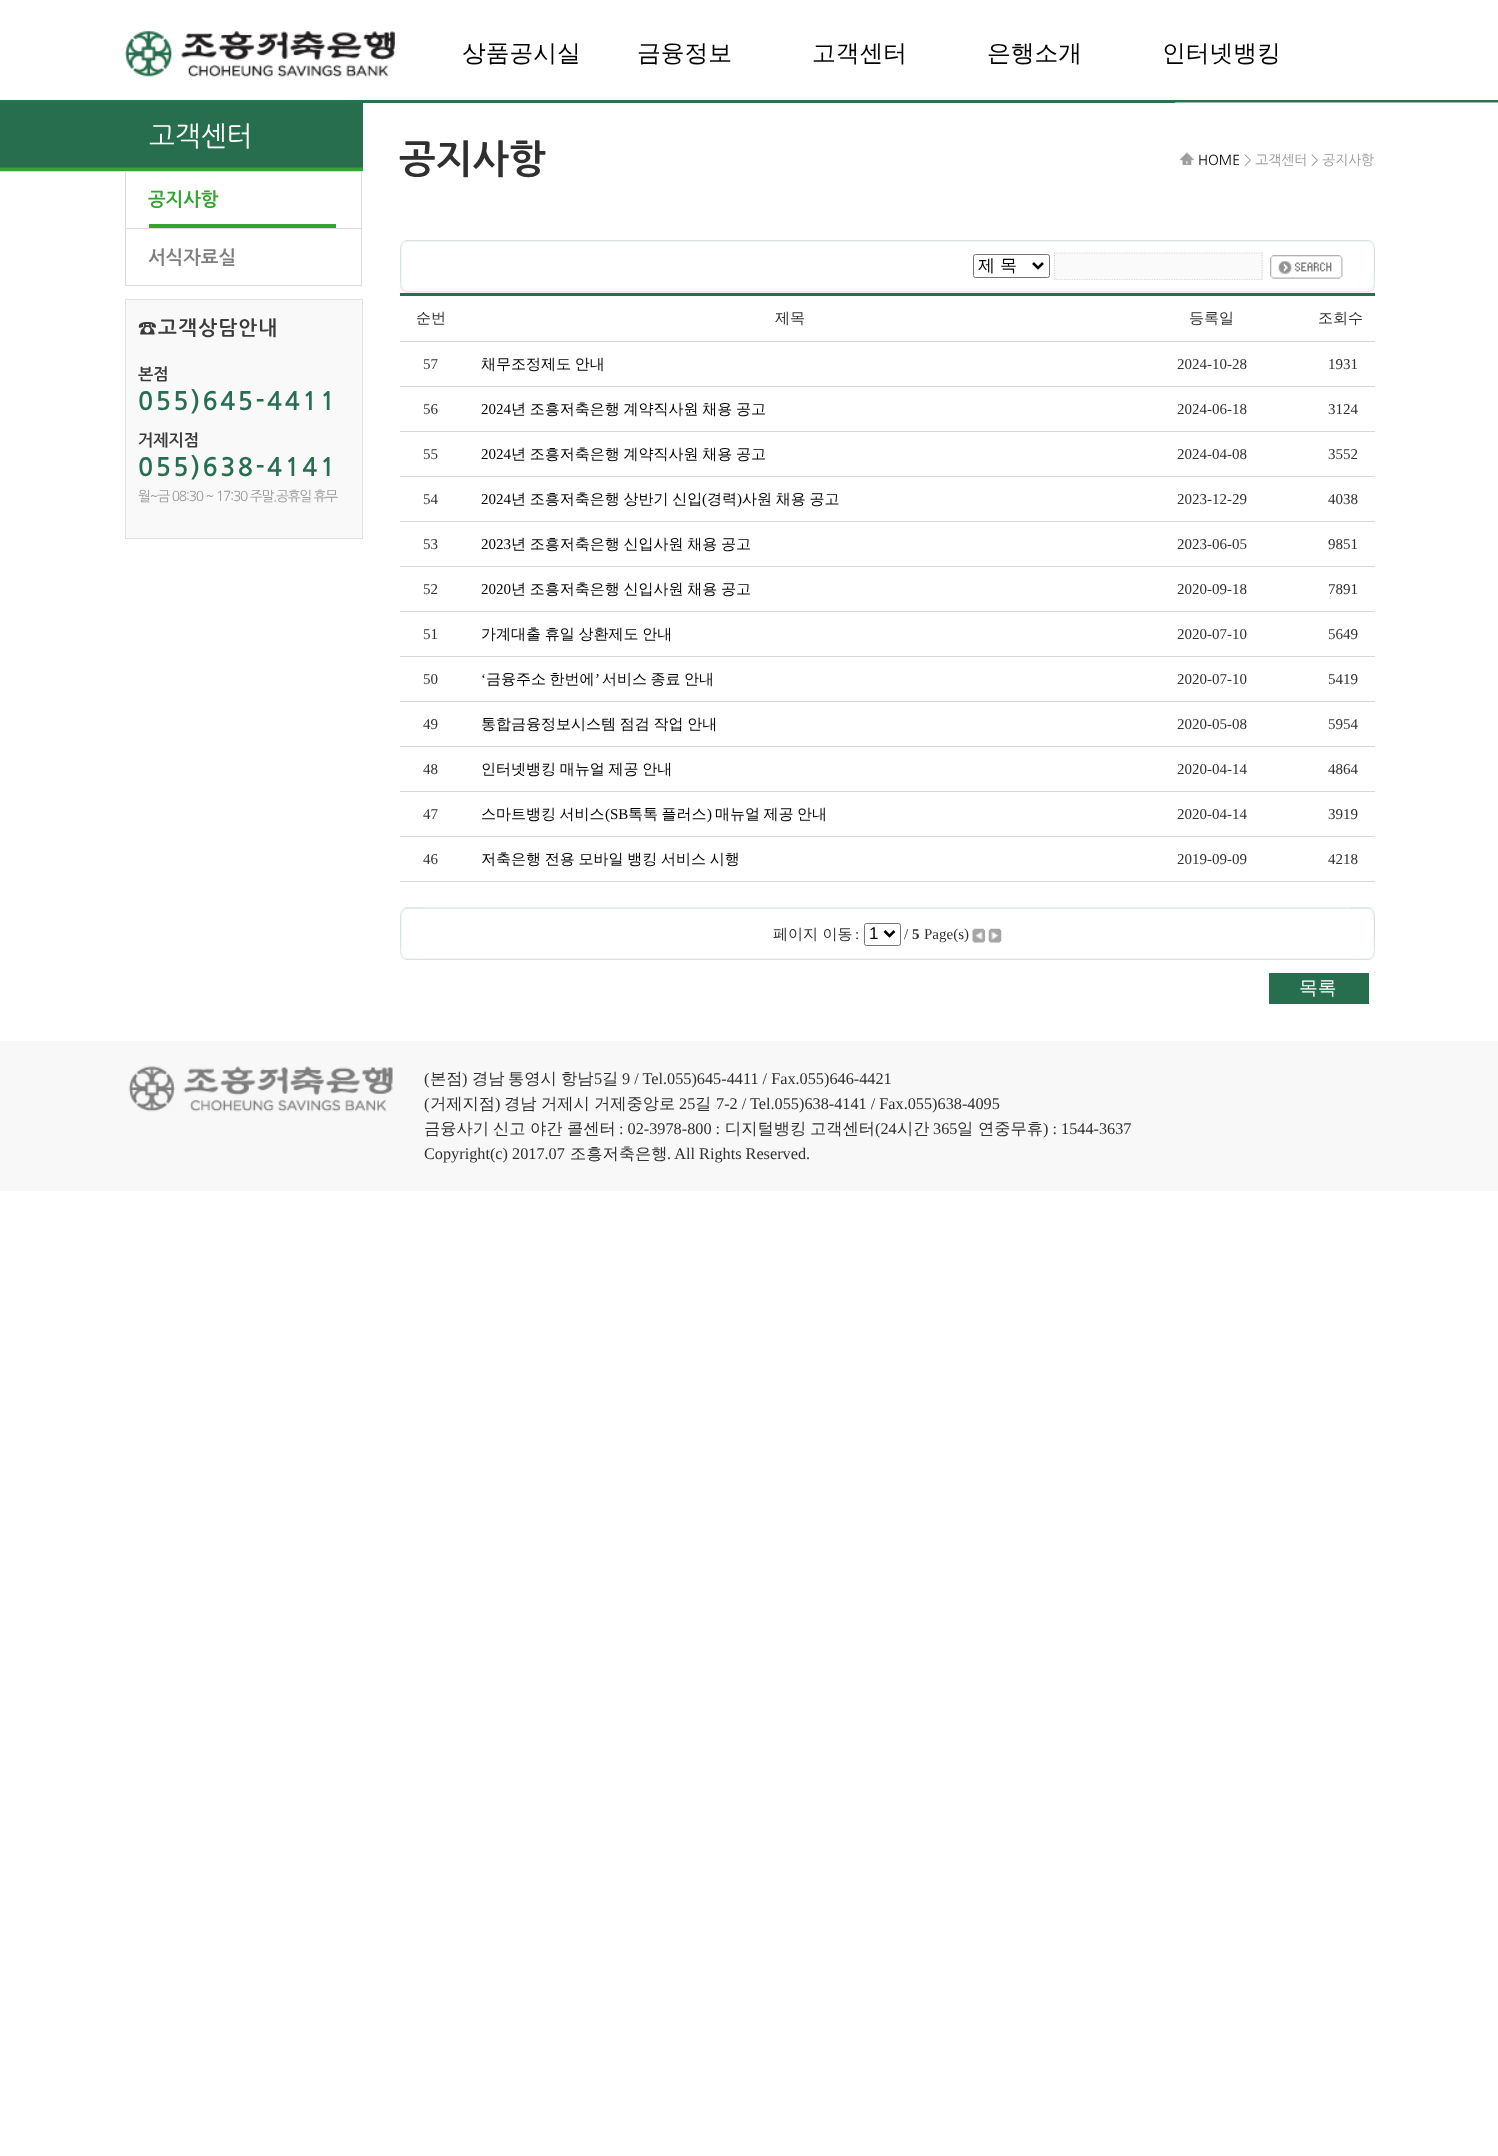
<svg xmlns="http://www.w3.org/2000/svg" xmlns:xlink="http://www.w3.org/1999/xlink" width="1498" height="2156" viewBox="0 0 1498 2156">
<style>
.cls-1{font:500 23.75px WenQuanYi Zen Hei;fill:#000000}
.cls-2{font:27.5px NanumGothic;fill:#ffffff}
.cls-3{font:bold 18.75px NanumGothic;fill:#34a431}
.cls-4{font:bold 18.75px NanumGothic;fill:#7f7f7f}
.cls-5{font:bold 20px NanumGothic;letter-spacing:1.25px;fill:#3c3c3c}
.cls-6{font:bold 16.25px NanumGothic;fill:#3c3c3c}
.cls-7{font:bold 25px NanumGothic;letter-spacing:2.5px;fill:#286f51}
.cls-8{font:13.75px NanumGothic;letter-spacing:-1.25px;fill:#999999}
.cls-9{font:bold 39px NanumGothic;fill:#303030}
.cls-10{font:13.75px NanumGothic;fill:#000000}
.cls-11{font:13.75px NanumGothic;fill:#999999}
.cls-12{font:500 17px WenQuanYi Zen Hei;fill:#000000}
.cls-13{font:500 15px WenQuanYi Zen Hei;fill:#303030}
.cls-14{font:15px Liberation Serif;fill:#303030}
.cls-15{font:500 15px WenQuanYi Zen Hei;fill:#000000}
.cls-16{font:15px Liberation Serif;fill:#000000}
.cls-17{font:17px Liberation Sans;fill:#000000}
.cls-18{font:bold 15px Liberation Serif;fill:#303030}
.cls-19{font:500 18.75px WenQuanYi Zen Hei;fill:#ffffff}
.cls-20{font:16.25px Liberation Serif;fill:#303030}
.cls-21{font:500 16.25px WenQuanYi Zen Hei;fill:#303030}
</style>
<rect width="100%" height="100%" fill="#ffffff"/>
<rect fill="#2c704f" x="0" y="100" width="1498" height="3"/>
<image xlink:href="image0.png" x="125" y="31" width="270" height="46"/>
<image xlink:href="image1.png" x="0" y="102" width="1498" height="70"/>
<rect fill="#dcdcdc" x="361" y="171" width="1" height="115"/>
<rect fill="#dcdcdc" x="125" y="171" width="1" height="115"/>
<rect fill="#dcdcdc" x="126" y="228" width="235" height="1"/>
<rect fill="#34a431" x="149" y="224" width="187" height="4"/>
<rect fill="#dcdcdc" x="126" y="285" width="235" height="1"/>
<rect fill="#f9f9f9" stroke="#e0e0e0" x="125.5" y="299.5" width="237" height="239"/>
<rect fill="#ffffff" x="363" y="103" width="813" height="69"/>
<image xlink:href="image2.png" x="1180" y="152" width="14" height="13"/>
<image xlink:href="image3.png" x="400" y="240" width="25" height="53"/>
<image xlink:href="image4.png" x="425" y="240" width="925" height="53"/>
<rect fill="none" stroke="#767676" x="973.5" y="254.5" width="76" height="23" rx="2"/>
<path fill="none" stroke="#000000" stroke-width="2.5" d="M1033 263L1038 268L1043 263"/>
<rect fill="#fafafa" x="1054" y="253" width="209" height="27"/>
<path fill="none" stroke="#d8d8d8" stroke-width="1.2" stroke-dasharray="1.25 1.25" d="M1054 253H1262.5"/>
<path fill="none" stroke="#d8d8d8" stroke-width="1.2" stroke-dasharray="1.25 1.25" d="M1262 252.5V280"/>
<path fill="none" stroke="#d8d8d8" stroke-width="1.2" stroke-dasharray="1.25 1.25" d="M1054 279.5H1262.5"/>
<path fill="none" stroke="#d8d8d8" stroke-width="1.2" stroke-dasharray="1.25 1.25" d="M1054.5 252.5V280"/>
<image xlink:href="image5.png" x="1270" y="255" width="73" height="24"/>
<image xlink:href="image6.png" x="1350" y="240" width="25" height="53"/>
<rect fill="#276e4e" x="400" y="293" width="975" height="3"/>
<rect fill="#d8d8d8" x="400" y="341" width="975" height="1"/>
<rect fill="#d8d8d8" x="400" y="386" width="975" height="1"/>
<rect fill="#d8d8d8" x="400" y="431" width="975" height="1"/>
<rect fill="#d8d8d8" x="400" y="476" width="975" height="1"/>
<rect fill="#d8d8d8" x="400" y="521" width="975" height="1"/>
<rect fill="#d8d8d8" x="400" y="566" width="975" height="1"/>
<rect fill="#d8d8d8" x="400" y="611" width="975" height="1"/>
<rect fill="#d8d8d8" x="400" y="656" width="975" height="1"/>
<rect fill="#d8d8d8" x="400" y="701" width="975" height="1"/>
<rect fill="#d8d8d8" x="400" y="746" width="975" height="1"/>
<rect fill="#d8d8d8" x="400" y="791" width="975" height="1"/>
<rect fill="#d8d8d8" x="400" y="836" width="975" height="1"/>
<rect fill="#d8d8d8" x="400" y="881" width="975" height="1"/>
<image xlink:href="image7.png" x="400" y="907" width="975" height="53"/>
<image xlink:href="image8.png" x="400" y="907" width="25" height="53"/>
<rect fill="none" stroke="#767676" x="864.5" y="923.5" width="36" height="22" rx="2"/>
<path fill="none" stroke="#000000" stroke-width="2.5" d="M884.5 931L889.5 936L894.5 931"/>
<image xlink:href="image9.png" x="972" y="928" width="13" height="15"/>
<image xlink:href="image10.png" x="988" y="928" width="14" height="15"/>
<image xlink:href="image11.png" x="1350" y="907" width="25" height="53"/>
<rect fill="#276e4e" x="1269" y="973" width="100" height="31"/>
<rect fill="#f8f8f8" x="0" y="1041" width="1498" height="150"/>
<image xlink:href="image12.png" x="128" y="1066" width="265" height="46"/>
<text class="cls-1" x="462" y="61">상품공시실</text>
<text class="cls-1" x="637" y="61">금융정보</text>
<text class="cls-1" x="812" y="61">고객센터</text>
<text class="cls-1" x="987" y="61">은행소개</text>
<text class="cls-1" x="1162" y="61">인터넷뱅킹</text>
<text class="cls-2" x="149" y="146">고객센터</text>
<text class="cls-3" x="148" y="206">공지사항</text>
<text class="cls-4" x="148" y="264">서식자료실</text>
<text class="cls-5" x="138" y="335">☎고객상담안내</text>
<text class="cls-6" x="138" y="380">본점</text>
<text class="cls-7" x="138" y="410">055)645-4411</text>
<text class="cls-6" x="138" y="446">거제지점</text>
<text class="cls-7" x="138" y="476">055)638-4141</text>
<text class="cls-8" x="138" y="501">월~금 08:30 ~ 17:30 주말.공휴일 휴무</text>
<text class="cls-9" x="399" y="173">공지사항</text>
<text class="cls-10" x="1198" y="165">HOME</text>
<text class="cls-11" x="1244" y="165">&gt; 고객센터 &gt; 공지사항</text>
<text class="cls-12" x="978" y="271">제 목</text>
<text class="cls-13" x="416" y="323">순번</text>
<text class="cls-13" x="775" y="323">제목</text>
<text class="cls-13" x="1189" y="323">등록일</text>
<text class="cls-13" x="1318" y="323">조회수</text>
<text class="cls-14" x="423" y="369">57</text>
<text class="cls-15" x="481" y="369" word-spacing="-0.75">채무조정제도 안내</text>
<text class="cls-14" x="1177" y="369">2024-10-28</text>
<text class="cls-14" x="1328" y="369">1931</text>
<text class="cls-14" x="423" y="414">56</text>
<text class="cls-16" x="481" y="414">2024</text>
<text class="cls-15" x="511" y="414" word-spacing="-0.75">년 조흥저축은행 계약직사원 채용 공고</text>
<text class="cls-14" x="1177" y="414">2024-06-18</text>
<text class="cls-14" x="1328" y="414">3124</text>
<text class="cls-14" x="423" y="459">55</text>
<text class="cls-16" x="481" y="459">2024</text>
<text class="cls-15" x="511" y="459" word-spacing="-0.75">년 조흥저축은행 계약직사원 채용 공고</text>
<text class="cls-14" x="1177" y="459">2024-04-08</text>
<text class="cls-14" x="1328" y="459">3552</text>
<text class="cls-14" x="423" y="504">54</text>
<text class="cls-16" x="481" y="504">2024</text>
<text class="cls-15" x="511" y="504" word-spacing="-0.75">년 조흥저축은행 상반기 신입</text>
<text class="cls-16" x="702" y="504">(</text>
<text class="cls-15" x="707" y="504">경력</text>
<text class="cls-16" x="737" y="504">)</text>
<text class="cls-15" x="742" y="504" word-spacing="-0.75">사원 채용 공고</text>
<text class="cls-14" x="1177" y="504">2023-12-29</text>
<text class="cls-14" x="1328" y="504">4038</text>
<text class="cls-14" x="423" y="549">53</text>
<text class="cls-16" x="481" y="549">2023</text>
<text class="cls-15" x="511" y="549" word-spacing="-0.75">년 조흥저축은행 신입사원 채용 공고</text>
<text class="cls-14" x="1177" y="549">2023-06-05</text>
<text class="cls-14" x="1328" y="549">9851</text>
<text class="cls-14" x="423" y="594">52</text>
<text class="cls-16" x="481" y="594">2020</text>
<text class="cls-15" x="511" y="594" word-spacing="-0.75">년 조흥저축은행 신입사원 채용 공고</text>
<text class="cls-14" x="1177" y="594">2020-09-18</text>
<text class="cls-14" x="1328" y="594">7891</text>
<text class="cls-14" x="423" y="639">51</text>
<text class="cls-15" x="481" y="639" word-spacing="-0.75">가계대출 휴일 상환제도 안내</text>
<text class="cls-14" x="1177" y="639">2020-07-10</text>
<text class="cls-14" x="1328" y="639">5649</text>
<text class="cls-14" x="423" y="684">50</text>
<text class="cls-16" x="481" y="684">‘</text>
<text class="cls-15" x="486" y="684" word-spacing="-1">금융주소 한번에</text>
<text class="cls-16" x="595" y="684">’</text>
<text class="cls-15" x="602" y="684" word-spacing="-1">서비스 종료 안내</text>
<text class="cls-14" x="1177" y="684">2020-07-10</text>
<text class="cls-14" x="1328" y="684">5419</text>
<text class="cls-14" x="423" y="729">49</text>
<text class="cls-15" x="481" y="729" word-spacing="-0.75">통합금융정보시스템 점검 작업 안내</text>
<text class="cls-14" x="1177" y="729">2020-05-08</text>
<text class="cls-14" x="1328" y="729">5954</text>
<text class="cls-14" x="423" y="774">48</text>
<text class="cls-15" x="481" y="774" word-spacing="-0.75">인터넷뱅킹 매뉴얼 제공 안내</text>
<text class="cls-14" x="1177" y="774">2020-04-14</text>
<text class="cls-14" x="1328" y="774">4864</text>
<text class="cls-14" x="423" y="819">47</text>
<text class="cls-15" x="481" y="819" word-spacing="-1">스마트뱅킹 서비스</text>
<text class="cls-16" x="605" y="819">(SB</text>
<text class="cls-15" x="628" y="819" word-spacing="-1">톡톡 플러스</text>
<text class="cls-16" x="707" y="819">)</text>
<text class="cls-15" x="715" y="819" word-spacing="-1">매뉴얼 제공 안내</text>
<text class="cls-14" x="1177" y="819">2020-04-14</text>
<text class="cls-14" x="1328" y="819">3919</text>
<text class="cls-14" x="423" y="864">46</text>
<text class="cls-15" x="481" y="864" word-spacing="-0.75">저축은행 전용 모바일 뱅킹 서비스 시행</text>
<text class="cls-14" x="1177" y="864">2019-09-09</text>
<text class="cls-14" x="1328" y="864">4218</text>
<text class="cls-13" x="773" y="939">페이지 이동</text>
<text class="cls-14" x="855" y="939">:</text>
<text class="cls-17" x="869" y="939">1</text>
<text class="cls-14" x="904" y="939">/</text>
<text class="cls-18" x="912" y="939">5</text>
<text class="cls-14" x="924" y="939">Page(s)</text>
<text class="cls-19" x="1299" y="994">목록</text>
<text class="cls-20" x="424" y="1084">(</text>
<text class="cls-21" x="430" y="1084">본점</text>
<text class="cls-20" x="462" y="1084">)</text>
<text class="cls-21" x="472" y="1084">경남</text>
<text class="cls-21" x="508" y="1084">통영시</text>
<text class="cls-21" x="561" y="1084">항남</text>
<text class="cls-20" x="594" y="1084">5</text>
<text class="cls-21" x="602" y="1084">길</text>
<text class="cls-20" x="622" y="1084">9 / Tel.055)645-4411 / Fax.055)646-4421</text>
<text class="cls-20" x="424" y="1109">(</text>
<text class="cls-21" x="430" y="1109">거제지점</text>
<text class="cls-20" x="495" y="1109">)</text>
<text class="cls-21" x="504" y="1109">경남</text>
<text class="cls-21" x="541" y="1109">거제시</text>
<text class="cls-21" x="594" y="1109">거제중앙로</text>
<text class="cls-20" x="679" y="1109">25</text>
<text class="cls-21" x="695" y="1109">길</text>
<text class="cls-20" x="716" y="1109">7-2 / Tel.055)638-4141 / Fax.055)638-4095</text>
<text class="cls-21" x="424" y="1134">금융사기</text>
<text class="cls-21" x="493" y="1134">신고</text>
<text class="cls-21" x="530" y="1134">야간</text>
<text class="cls-21" x="567" y="1134">콜센터</text>
<text class="cls-20" x="619" y="1134">: 02-3978-800 :</text>
<text class="cls-21" x="725" y="1134">디지털뱅킹</text>
<text class="cls-21" x="810" y="1134">고객센터</text>
<text class="cls-20" x="875" y="1134">(24</text>
<text class="cls-21" x="897" y="1134">시간</text>
<text class="cls-20" x="933" y="1134">365</text>
<text class="cls-21" x="957" y="1134">일</text>
<text class="cls-21" x="978" y="1134">연중무휴</text>
<text class="cls-20" x="1043" y="1134">) : 1544-3637</text>
<text class="cls-20" x="424" y="1159">Copyright(c) 2017.07</text>
<text class="cls-21" x="570" y="1159">조흥저축은행</text>
<text class="cls-20" x="667" y="1159">. All Rights Reserved.</text>
</svg>
